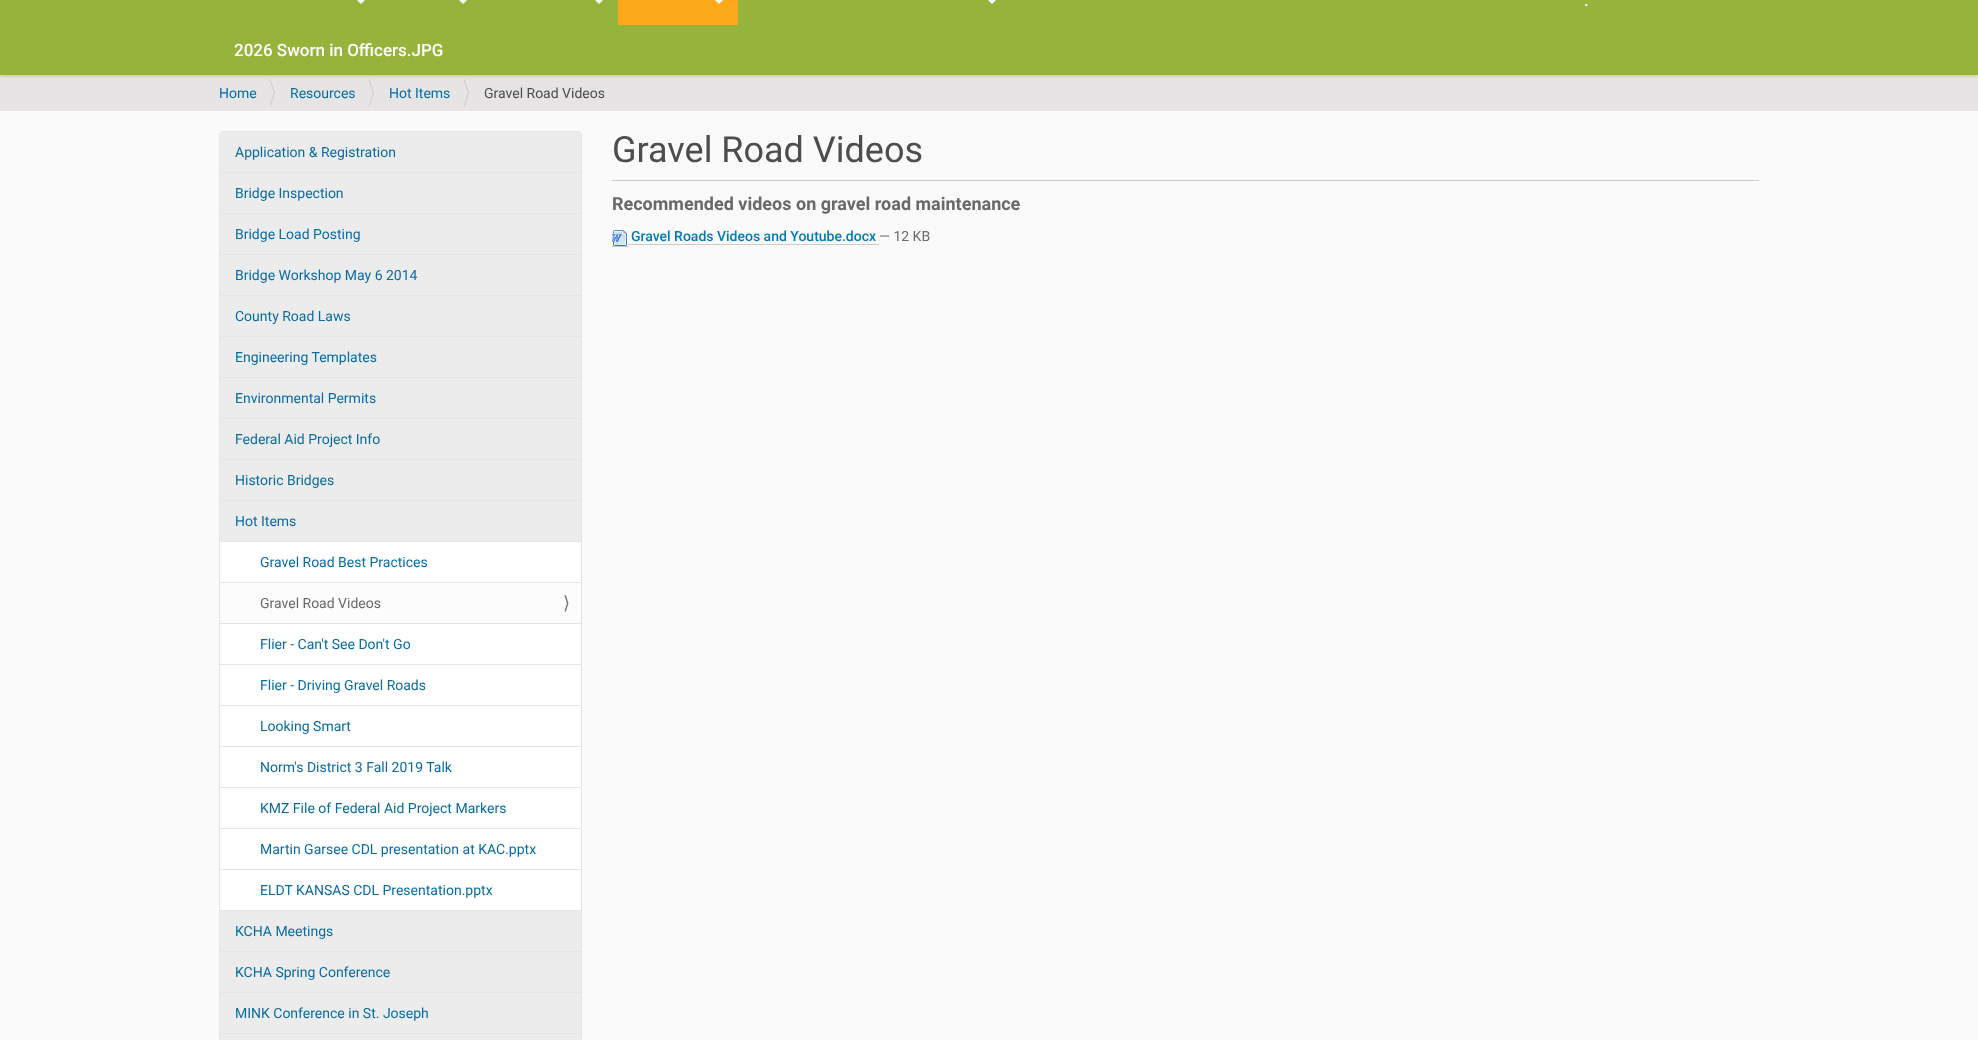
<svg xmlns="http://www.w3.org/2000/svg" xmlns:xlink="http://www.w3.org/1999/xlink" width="1978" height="1040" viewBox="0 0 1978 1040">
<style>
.cls-1{font:500 17px Roboto;fill:#ffffff}
.cls-2{font:14px Roboto;fill:#086ca3}
.cls-3{font:14px Roboto;fill:#4d4d4d}
.cls-4{font:14px Roboto;fill:#696969}
.cls-5{font:18px DejaVu Sans;fill:#777777}
.cls-6{font:36px Roboto;fill:#4d4d4d}
.cls-7{font:bold 18px Roboto;fill:#696969}
.cls-8{font:500 14px Roboto;fill:#007bb1}
</style>
<rect width="100%" height="100%" fill="#fafafa"/>
<rect fill="#e6e4e4" x="0" y="75" width="1978" height="36"/>
<rect fill="#000000" fill-opacity="0.17" filter="blur(1.5px)" x="0" y="-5" width="1978" height="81"/>
<rect fill="#96b43c" x="0" y="0" width="1978" height="75"/>
<path fill="#ffffff" d="M357 0H365L361 4Z"/>
<path fill="#ffffff" d="M459 0H467L463 4Z"/>
<path fill="#ffffff" d="M595 0H603L599 4Z"/>
<rect fill="#fba919" x="618" y="0" width="120" height="25"/>
<path fill="#ffffff" d="M715 0H723L719 4Z"/>
<path fill="#ffffff" d="M988 0H996L992 4Z"/>
<path fill="#cccccc" d="M270 108V78L275 93Z"/>
<path fill="#e6e4e4" d="M269 108V78L274 93Z"/>
<path fill="#cccccc" d="M369 108V78L374 93Z"/>
<path fill="#e6e4e4" d="M368 108V78L373 93Z"/>
<path fill="#cccccc" d="M464 108V78L469 93Z"/>
<path fill="#e6e4e4" d="M463 108V78L468 93Z"/>
<rect fill="none" stroke="#e5e5e5" x="219.5" y="131.5" width="362" height="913" rx="3.5"/>
<rect fill="#ffffff" x="220" y="542" width="361" height="368"/>
<rect fill="#edecec" x="220" y="132" width="361" height="40"/>
<rect fill="#edecec" x="220" y="173" width="361" height="40"/>
<rect fill="#e5e5e5" x="220" y="172" width="361" height="1"/>
<rect fill="#edecec" x="220" y="214" width="361" height="40"/>
<rect fill="#e5e5e5" x="220" y="213" width="361" height="1"/>
<rect fill="#edecec" x="220" y="255" width="361" height="40"/>
<rect fill="#e5e5e5" x="220" y="254" width="361" height="1"/>
<rect fill="#edecec" x="220" y="296" width="361" height="40"/>
<rect fill="#e5e5e5" x="220" y="295" width="361" height="1"/>
<rect fill="#edecec" x="220" y="337" width="361" height="40"/>
<rect fill="#e5e5e5" x="220" y="336" width="361" height="1"/>
<rect fill="#edecec" x="220" y="378" width="361" height="40"/>
<rect fill="#e5e5e5" x="220" y="377" width="361" height="1"/>
<rect fill="#edecec" x="220" y="419" width="361" height="40"/>
<rect fill="#e5e5e5" x="220" y="418" width="361" height="1"/>
<rect fill="#edecec" x="220" y="460" width="361" height="40"/>
<rect fill="#e5e5e5" x="220" y="459" width="361" height="1"/>
<rect fill="#edecec" x="220" y="501" width="361" height="40"/>
<rect fill="#e5e5e5" x="220" y="500" width="361" height="1"/>
<rect fill="#e5e5e5" x="220" y="541" width="361" height="1"/>
<rect fill="#fcfcfd" x="220" y="583" width="361" height="40"/>
<rect fill="#e5e5e5" x="220" y="582" width="361" height="1"/>
<rect fill="#e5e5e5" x="220" y="623" width="361" height="1"/>
<rect fill="#e5e5e5" x="220" y="664" width="361" height="1"/>
<rect fill="#e5e5e5" x="220" y="705" width="361" height="1"/>
<rect fill="#e5e5e5" x="220" y="746" width="361" height="1"/>
<rect fill="#e5e5e5" x="220" y="787" width="361" height="1"/>
<rect fill="#e5e5e5" x="220" y="828" width="361" height="1"/>
<rect fill="#e5e5e5" x="220" y="869" width="361" height="1"/>
<rect fill="#edecec" x="220" y="911" width="361" height="40"/>
<rect fill="#e5e5e5" x="220" y="910" width="361" height="1"/>
<rect fill="#edecec" x="220" y="952" width="361" height="40"/>
<rect fill="#e5e5e5" x="220" y="951" width="361" height="1"/>
<rect fill="#edecec" x="220" y="993" width="361" height="40"/>
<rect fill="#e5e5e5" x="220" y="992" width="361" height="1"/>
<rect fill="#edecec" x="220" y="1034" width="361" height="6"/>
<rect fill="#e5e5e5" x="220" y="1033" width="361" height="1"/>
<rect fill="#cccccc" x="612" y="180" width="1147" height="1"/>
<image xlink:href="image0.png" x="612" y="230" width="15" height="16"/>
<rect fill="#cccccc" x="612" y="246" width="16" height="1"/>
<rect fill="#cccccc" x="628" y="244" width="251" height="1"/>
<text class="cls-1" x="1584" y="6">.</text>
<text class="cls-1" x="234" y="56">2026 Sworn in Officers.JPG</text>
<text class="cls-2" x="219" y="98">Home</text>
<text class="cls-2" x="290" y="98">Resources</text>
<text class="cls-2" x="389" y="98">Hot Items</text>
<text class="cls-3" x="484" y="98">Gravel Road Videos</text>
<text class="cls-2" x="235" y="157">Application &amp; Registration</text>
<text class="cls-2" x="235" y="198">Bridge Inspection</text>
<text class="cls-2" x="235" y="239">Bridge Load Posting</text>
<text class="cls-2" x="235" y="280">Bridge Workshop May 6 2014</text>
<text class="cls-2" x="235" y="321">County Road Laws</text>
<text class="cls-2" x="235" y="362">Engineering Templates</text>
<text class="cls-2" x="235" y="403">Environmental Permits</text>
<text class="cls-2" x="235" y="444">Federal Aid Project Info</text>
<text class="cls-2" x="235" y="485">Historic Bridges</text>
<text class="cls-2" x="235" y="526">Hot Items</text>
<text class="cls-2" x="260" y="567">Gravel Road Best Practices</text>
<text class="cls-4" x="260" y="608">Gravel Road Videos</text>
<text class="cls-5" x="563" y="609">⟩</text>
<text class="cls-2" x="260" y="649">Flier - Can't See Don't Go</text>
<text class="cls-2" x="260" y="690">Flier - Driving Gravel Roads</text>
<text class="cls-2" x="260" y="731">Looking Smart</text>
<text class="cls-2" x="260" y="772">Norm's District 3 Fall 2019 Talk</text>
<text class="cls-2" x="260" y="813">KMZ File of Federal Aid Project Markers</text>
<text class="cls-2" x="260" y="854">Martin Garsee CDL presentation at KAC.pptx</text>
<text class="cls-2" x="260" y="895">ELDT KANSAS CDL Presentation.pptx</text>
<text class="cls-2" x="235" y="936">KCHA Meetings</text>
<text class="cls-2" x="235" y="977">KCHA Spring Conference</text>
<text class="cls-2" x="235" y="1018">MINK Conference in St. Joseph</text>
<text class="cls-6" x="612" y="162">Gravel Road Videos</text>
<text class="cls-7" x="612" y="210">Recommended videos on gravel road maintenance</text>
<text class="cls-8" x="631" y="241">Gravel Roads Videos and Youtube.docx</text>
<text class="cls-4" x="879" y="241">— 12 KB</text>
</svg>
